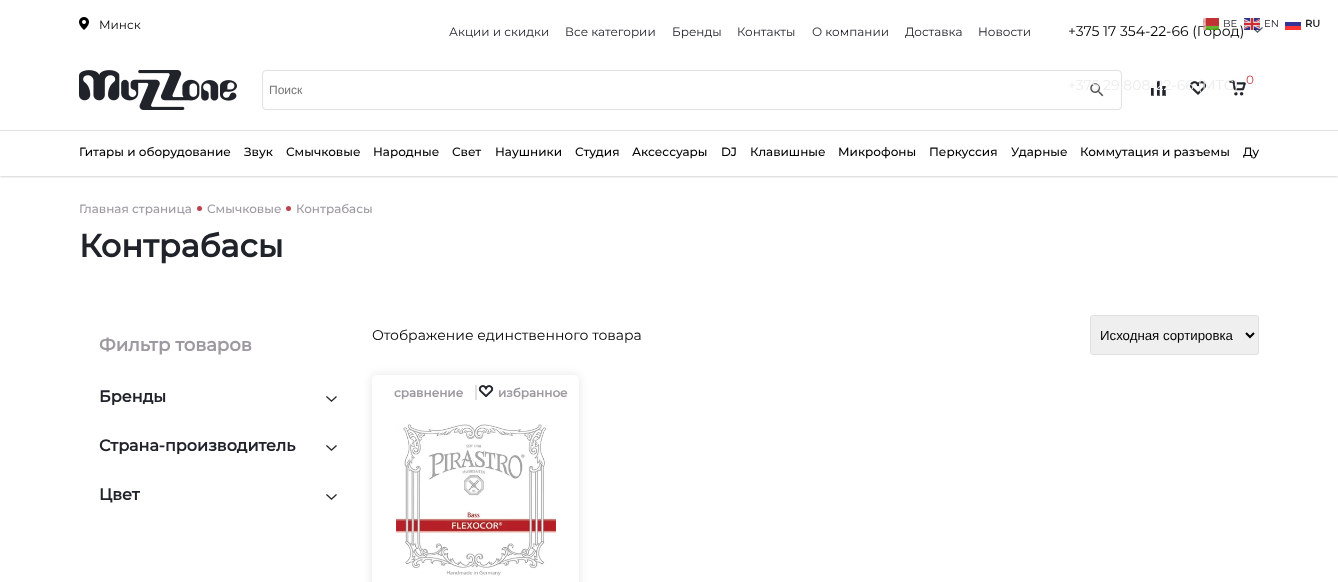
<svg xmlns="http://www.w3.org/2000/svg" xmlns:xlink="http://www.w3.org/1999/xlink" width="1338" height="582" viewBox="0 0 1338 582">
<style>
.cls-1{font:12px Montserrat;fill:#000000}
.cls-2{font:12px Montserrat;fill:#202329}
.cls-3{font:14px Montserrat;fill:#000000}
.cls-4{font:14px Montserrat;fill:#ececed}
.cls-5{font:12px Montserrat;fill:#bb424b}
.cls-6{font:12px Liberation Sans;fill:#757575}
.cls-7{font:500 12px Montserrat;fill:#000000}
.cls-8{font:10px Montserrat;fill:#202329}
.cls-9{font:bold 10px Montserrat;fill:#202329}
.cls-10{font:500 12px Montserrat;fill:#9d99a1}
.cls-11{font:bold 32px Montserrat;fill:#202329}
.cls-12{font:bold 18px Montserrat;fill:#9d99a1}
.cls-13{font:bold 16px Montserrat;fill:#202329}
.cls-14{font:13.25px Liberation Sans;fill:#000000}
.cls-15{font:bold 12px Montserrat;fill:#9d99a1}
</style>
<defs>
<clipPath id="clip1"><rect x="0" y="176" width="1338" height="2"/></clipPath>
</defs>
<rect width="100%" height="100%" fill="#ffffff"/>
<image xlink:href="image0.png" x="79" y="17" width="10" height="13"/>
<image xlink:href="image1.png" x="1252" y="27" width="11" height="6"/>
<image xlink:href="image2.png" x="79" y="70" width="158" height="40"/>
<image xlink:href="image3.png" x="1150" y="80" width="16" height="16"/>
<image xlink:href="image4.png" x="1189" y="81" width="18" height="14"/>
<image xlink:href="image5.png" x="1229" y="80" width="17" height="16"/>
<rect fill="none" stroke="#dfe0e2" x="262.5" y="70.5" width="859" height="39" rx="3.5"/>
<image xlink:href="image6.png" x="1090" y="83" width="14" height="14"/>
<g clip-path="url(#clip1)">
<rect fill="#000000" fill-opacity="0.17" filter="blur(1px)" x="0" y="131" width="1338" height="46"/>
</g>
<rect fill="#dfe0e2" x="0" y="130" width="1338" height="1"/>
<image xlink:href="image8.png" x="1244" y="18" width="16" height="12"/>
<rect fill="#343498" x="1285" y="22" width="16" height="4"/>
<rect fill="#fe3434" x="1285" y="26" width="16" height="4"/>
<circle fill="#bb424b" cx="199.5" cy="208.5" r="2.5"/>
<circle fill="#bb424b" cx="288.5" cy="208.5" r="2.5"/>
<image xlink:href="image9.png" x="326" y="396" width="11" height="6"/>
<image xlink:href="image9.png" x="326" y="445" width="11" height="6"/>
<image xlink:href="image9.png" x="326" y="494" width="11" height="6"/>
<rect fill="#efefef" stroke="#dfe0e2" x="1090.5" y="315.5" width="168" height="39" rx="2.5"/>
<path fill="none" stroke="#000000" stroke-width="2" d="M1246 333L1250 337L1254 333"/>
<rect fill="#000000" fill-opacity="0.1" filter="blur(5px)" x="372" y="375" width="207" height="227" rx="5"/>
<rect fill="#ffffff" x="372" y="375" width="207" height="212" rx="5"/>
<rect fill="#dfe0e2" x="475" y="385" width="2" height="15"/>
<image xlink:href="image10.png" x="478" y="385" width="16" height="12"/>
<image xlink:href="image11.png" x="396" y="424" width="160" height="152"/>
<text class="cls-1" x="99" y="29">Минск</text>
<text class="cls-2" x="449" y="36">Акции и скидки</text>
<text class="cls-2" x="565" y="36">Все категории</text>
<text class="cls-2" x="672" y="36">Бренды</text>
<text class="cls-2" x="737" y="36">Контакты</text>
<text class="cls-2" x="812" y="36">О компании</text>
<text class="cls-2" x="905" y="36">Доставка</text>
<text class="cls-2" x="978" y="36">Новости</text>
<text class="cls-3" x="1068" y="36">+375 17 354-22-66 (Город)</text>
<text class="cls-4" x="1068" y="90">+375 29 808-22-66 (МТС)</text>
<text class="cls-5" x="1246" y="84">0</text>
<text class="cls-6" x="269" y="94">Поиск</text>
<text class="cls-7" x="79" y="156">Гитары и оборудование</text>
<text class="cls-7" x="244" y="156">Звук</text>
<text class="cls-7" x="286" y="156">Смычковые</text>
<text class="cls-7" x="373" y="156">Народные</text>
<text class="cls-7" x="452" y="156">Свет</text>
<text class="cls-7" x="495" y="156">Наушники</text>
<text class="cls-7" x="575" y="156">Студия</text>
<text class="cls-7" x="632" y="156">Аксессуары</text>
<text class="cls-7" x="721" y="156">DJ</text>
<text class="cls-7" x="750" y="156">Клавишные</text>
<text class="cls-7" x="838" y="156">Микрофоны</text>
<text class="cls-7" x="929" y="156">Перкуссия</text>
<text class="cls-7" x="1011" y="156">Ударные</text>
<text class="cls-7" x="1080" y="156">Коммутация и разъемы</text>
<text class="cls-7" x="1243" y="156">Ду</text>
<image xlink:href="image7.png" x="1203" y="18" width="16" height="12"/>
<text class="cls-8" x="1223" y="27">BE</text>
<text class="cls-8" x="1264" y="27">EN</text>
<text class="cls-9" x="1305" y="27">RU</text>
<text class="cls-10" x="79" y="213">Главная страница</text>
<text class="cls-10" x="207" y="213">Смычковые</text>
<text class="cls-10" x="296" y="213">Контрабасы</text>
<text class="cls-11" x="79" y="257">Контрабасы</text>
<text class="cls-12" x="99" y="351">Фильтр товаров</text>
<text class="cls-13" x="99" y="402">Бренды</text>
<text class="cls-13" x="99" y="451">Страна-производитель</text>
<text class="cls-13" x="99" y="500">Цвет</text>
<text class="cls-3" x="372" y="340">Отображение единственного товара</text>
<text class="cls-14" x="1100" y="340">Исходная сортировка</text>
<text class="cls-15" x="394" y="397">сравнение</text>
<text class="cls-15" x="498" y="397">избранное</text>
</svg>
